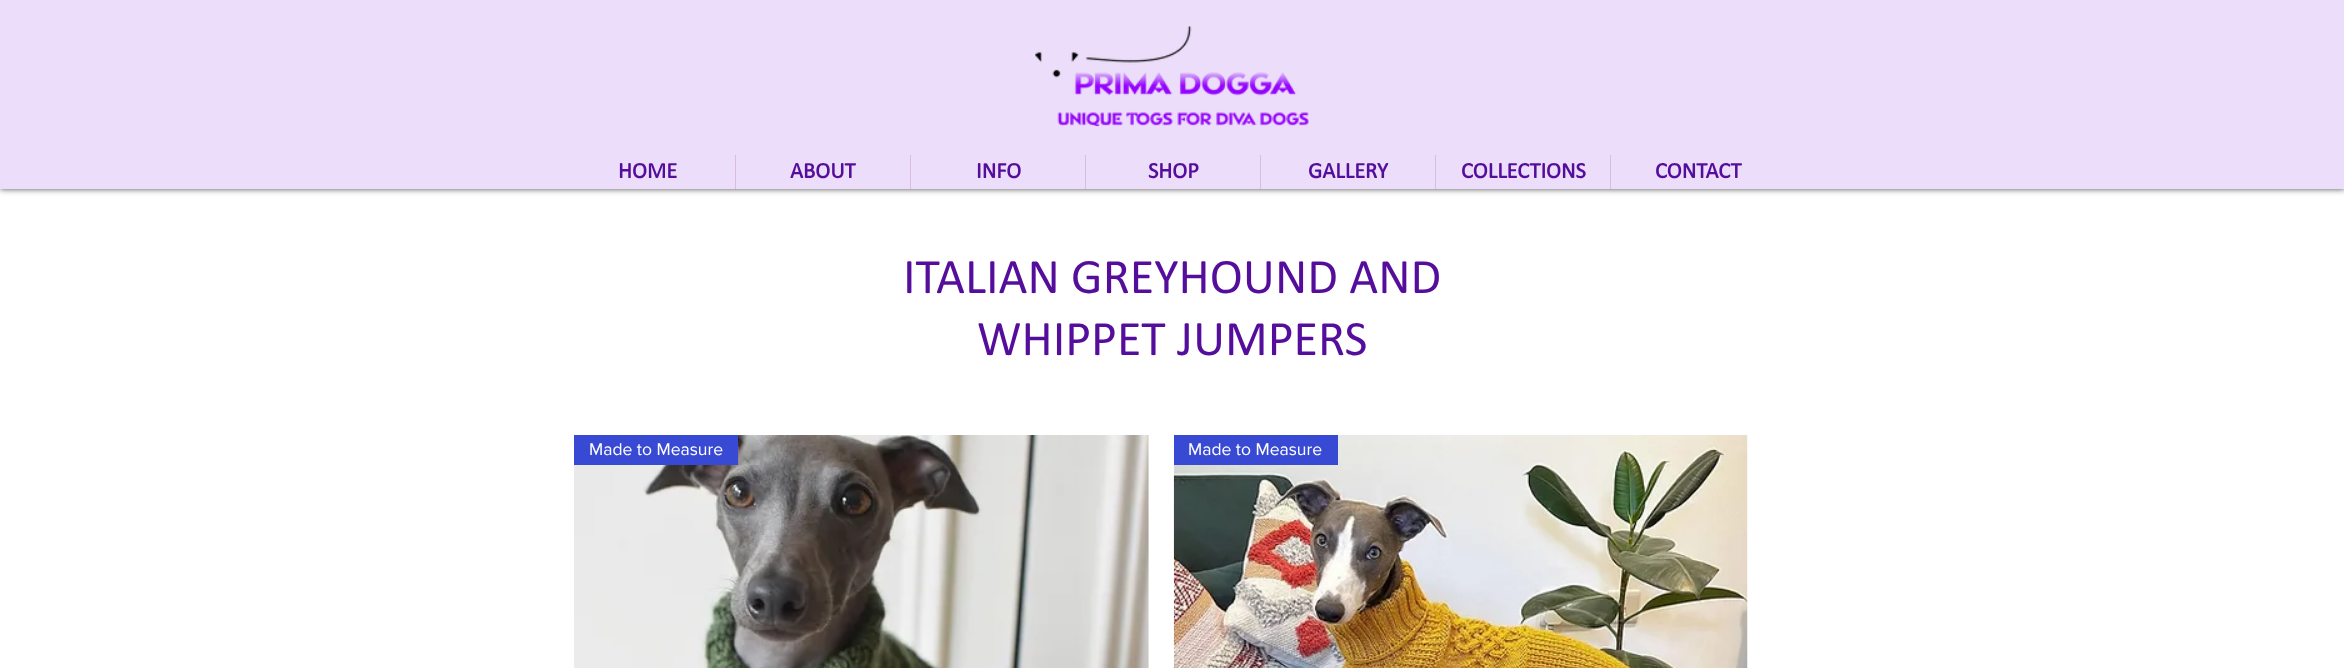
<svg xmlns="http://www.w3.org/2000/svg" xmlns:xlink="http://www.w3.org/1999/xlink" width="2344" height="668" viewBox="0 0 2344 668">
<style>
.cls-1{font:bold 22.5px Calibri;fill:#550e9b}
.cls-2{font:50px Calibri;fill:#550e9b}
.cls-3{font:17.5px 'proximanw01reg';fill:#ffffff}
</style>
<rect width="100%" height="100%" fill="#ffffff"/>
<rect fill="#000000" fill-opacity="0.7" filter="blur(3px)" x="0" y="0" width="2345" height="189"/>
<rect fill="#ecdefa" x="0" y="0" width="2344" height="189"/>
<image xlink:href="image0.png" x="1035" y="26" width="274" height="101"/>
<rect fill="#d8bde2" x="735" y="155" width="1" height="34"/>
<rect fill="#d8bde2" x="910" y="155" width="1" height="34"/>
<rect fill="#d8bde2" x="1085" y="155" width="1" height="34"/>
<rect fill="#d8bde2" x="1260" y="155" width="1" height="34"/>
<rect fill="#d8bde2" x="1435" y="155" width="1" height="34"/>
<rect fill="#d8bde2" x="1610" y="155" width="1" height="34"/>
<image xlink:href="image1.png" x="574" y="435" width="575" height="233"/>
<rect fill="#384ad3" x="574" y="435" width="164" height="30"/>
<image xlink:href="image2.png" x="1173" y="435" width="575" height="233"/>
<rect fill="#384ad3" x="1174" y="435" width="164" height="30"/>
<text class="cls-1" x="618" y="178">HOME</text>
<text class="cls-1" x="790" y="178">ABOUT</text>
<text class="cls-1" x="976" y="178">INFO</text>
<text class="cls-1" x="1148" y="178">SHOP</text>
<text class="cls-1" x="1308" y="178">GALLERY</text>
<text class="cls-1" x="1461" y="178">COLLECTIONS</text>
<text class="cls-1" x="1655" y="178">CONTACT</text>
<text class="cls-2" x="903" y="293">ITALIAN GREYHOUND AND</text>
<text class="cls-2" x="977" y="355">WHIPPET JUMPERS</text>
<text class="cls-3" x="589" y="455">Made to Measure</text>
<text class="cls-3" x="1188" y="455">Made to Measure</text>
</svg>
